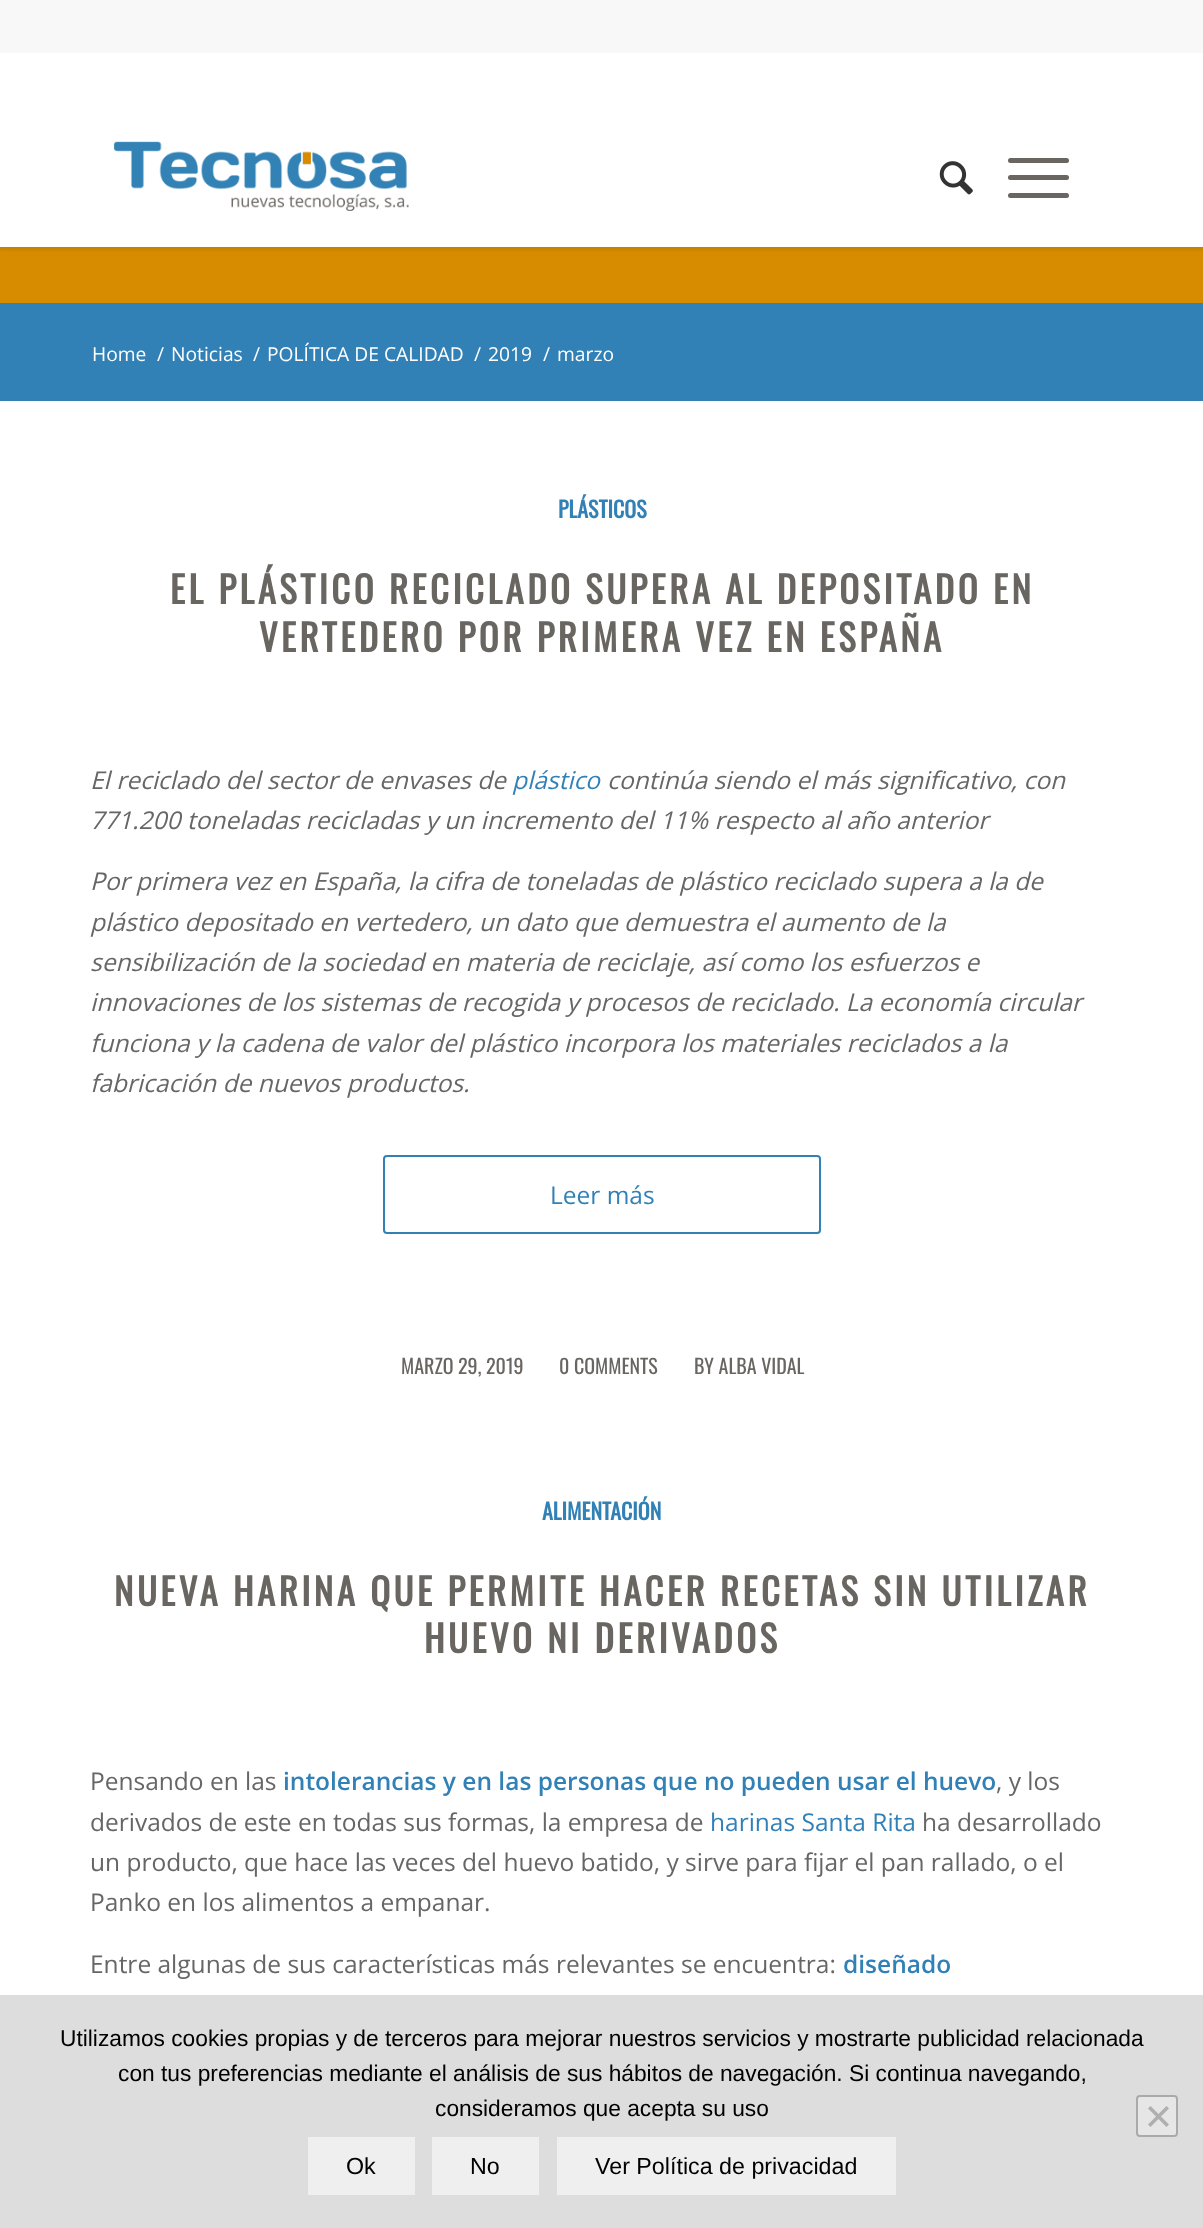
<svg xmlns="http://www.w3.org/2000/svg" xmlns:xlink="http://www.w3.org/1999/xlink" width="1203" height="2228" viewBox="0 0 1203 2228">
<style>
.cls-1{font:19.25px Open Sans;fill:#ffffff}
.cls-2{font:bold 22px Oswald;fill:#3281b6}
.cls-3{font:bold 36.75px Oswald;letter-spacing:3.5px;fill:#696560}
.cls-4{font:italic 24.5px Open Sans;fill:#666666}
.cls-5{font:italic 24.5px Open Sans;fill:#3281b6}
.cls-6{font:24.5px Open Sans;fill:#3281b6}
.cls-7{font:20px Oswald;fill:#696560}
.cls-8{font:24.5px Open Sans;fill:#666666}
.cls-9{font:600 24.5px Open Sans;fill:#3281b6}
.cls-10{font:22.75px Liberation Sans;fill:#000000}
.cls-11{font:23.25px Liberation Sans;fill:#000000}
</style>
<rect width="100%" height="100%" fill="#d78c00"/>
<rect fill="#000000" fill-opacity="0.1" filter="blur(2px)" x="-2" y="-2" width="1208" height="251"/>
<rect fill="#f8f8f8" x="0" y="0" width="1203" height="53"/>
<rect fill="#ffffff" x="0" y="53" width="1203" height="194"/>
<image xlink:href="image0.png" x="113" y="141" width="296" height="70"/>
<image xlink:href="image1.png" x="939" y="161" width="34" height="34"/>
<rect fill="#696560" x="1008" y="175" width="61" height="5" rx="2.5"/>
<rect fill="#696560" x="1008" y="158" width="61" height="5" rx="2.5"/>
<rect fill="#696560" x="1008" y="193" width="61" height="5" rx="2.5"/>
<rect fill="#ffffff" x="0" y="401" width="1203" height="1594"/>
<rect fill="#3281b6" x="0" y="303" width="1203" height="98"/>
<rect fill="none" stroke="#3281b6" stroke-width="2" x="384" y="1156" width="436" height="77" rx="3"/>
<rect fill="#dddddd" x="0" y="1995" width="1203" height="233"/>
<rect fill="#e6e6e6" stroke="#aaaaaa" stroke-width="2" x="1137" y="2096" width="40" height="40" rx="3"/>
<path fill="#afafaf" d="M1166.5 2106L1169 2108.5L1150.5 2127L1148 2124.5Z"/>
<path fill="#afafaf" d="M1148 2108.5L1150.5 2106L1169 2124.5L1166.5 2127Z"/>
<rect fill="#efefef" x="308" y="2137" width="107" height="58"/>
<rect fill="#efefef" x="432" y="2137" width="107" height="58"/>
<rect fill="#efefef" x="557" y="2137" width="339" height="58"/>
<text class="cls-1" x="92" y="361">Home</text>
<text class="cls-1" x="157" y="361">/</text>
<text class="cls-1" x="171" y="361">Noticias</text>
<text class="cls-1" x="253" y="361">/</text>
<text class="cls-1" x="267" y="361">POLÍTICA DE CALIDAD</text>
<text class="cls-1" x="474" y="361">/</text>
<text class="cls-1" x="488" y="361">2019</text>
<text class="cls-1" x="543" y="361">/</text>
<text class="cls-1" x="557" y="361">marzo</text>
<text class="cls-2" x="558" y="518">PLÁSTICOS</text>
<text class="cls-3" x="170" y="604">EL PLÁSTICO RECICLADO SUPERA AL DEPOSITADO EN</text>
<text class="cls-3" x="259" y="652">VERTEDERO POR PRIMERA VEZ EN ESPAÑA</text>
<text class="cls-4" x="90" y="789">El reciclado del sector de envases de</text>
<text class="cls-5" x="512" y="789">plástico</text>
<text class="cls-4" x="607" y="789">continúa siendo el más significativo, con</text>
<text class="cls-4" x="90" y="829">771.200 toneladas recicladas y un incremento del 11% respecto al año anterior</text>
<text class="cls-4"><tspan x="90" y="890">Por primera vez en España, la cifra de toneladas de plástico reciclado supera a la de</tspan><tspan x="90" y="931">plástico depositado en vertedero, un dato que demuestra el aumento de la</tspan><tspan x="90" y="971">sensibilización de la sociedad en materia de reciclaje, así como los esfuerzos e</tspan><tspan x="90" y="1011">innovaciones de los sistemas de recogida y procesos de reciclado. La economía circular</tspan><tspan x="90" y="1052">funciona y la cadena de valor del plástico incorpora los materiales reciclados a la</tspan><tspan x="90" y="1092">fabricación de nuevos productos.</tspan></text>
<text class="cls-6" x="550" y="1204">Leer más</text>
<text class="cls-7" x="401" y="1374">MARZO 29, 2019</text>
<text class="cls-7" x="559" y="1374">0 COMMENTS</text>
<text class="cls-7" x="694" y="1374">BY ALBA VIDAL</text>
<text class="cls-2" x="542" y="1520">ALIMENTACIÓN</text>
<text class="cls-3" x="114" y="1606">NUEVA HARINA QUE PERMITE HACER RECETAS SIN UTILIZAR</text>
<text class="cls-3" x="424" y="1653">HUEVO NI DERIVADOS</text>
<text class="cls-8" x="90" y="1790">Pensando en las</text>
<text class="cls-9" x="283" y="1790">intolerancias y en las personas que no pueden usar el huevo</text>
<text class="cls-8" x="996" y="1790">, y los</text>
<text class="cls-8" x="90" y="1831">derivados de este en todas sus formas, la empresa de</text>
<text class="cls-6" x="710" y="1831">harinas Santa Rita</text>
<text class="cls-8" x="922" y="1831">ha desarrollado</text>
<text class="cls-8"><tspan x="90" y="1871">un producto, que hace las veces del huevo batido, y sirve para fijar el pan rallado, o el</tspan><tspan x="90" y="1911">Panko en los alimentos a empanar.</tspan></text>
<text class="cls-8" x="90" y="1973">Entre algunas de sus características más relevantes se encuentra:</text>
<text class="cls-9" x="843" y="1973">diseñado</text>
<text class="cls-10" x="60" y="2046">Utilizamos cookies propias y de terceros para mejorar nuestros servicios y mostrarte publicidad relacionada</text>
<text class="cls-10" x="118" y="2081">con tus preferencias mediante el análisis de sus hábitos de navegación. Si continua navegando,</text>
<text class="cls-10" x="435" y="2116">consideramos que acepta su uso</text>
<text class="cls-11" x="346" y="2174">Ok</text>
<text class="cls-11" x="470" y="2174">No</text>
<text class="cls-11" x="595" y="2174">Ver Política de privacidad</text>
</svg>
